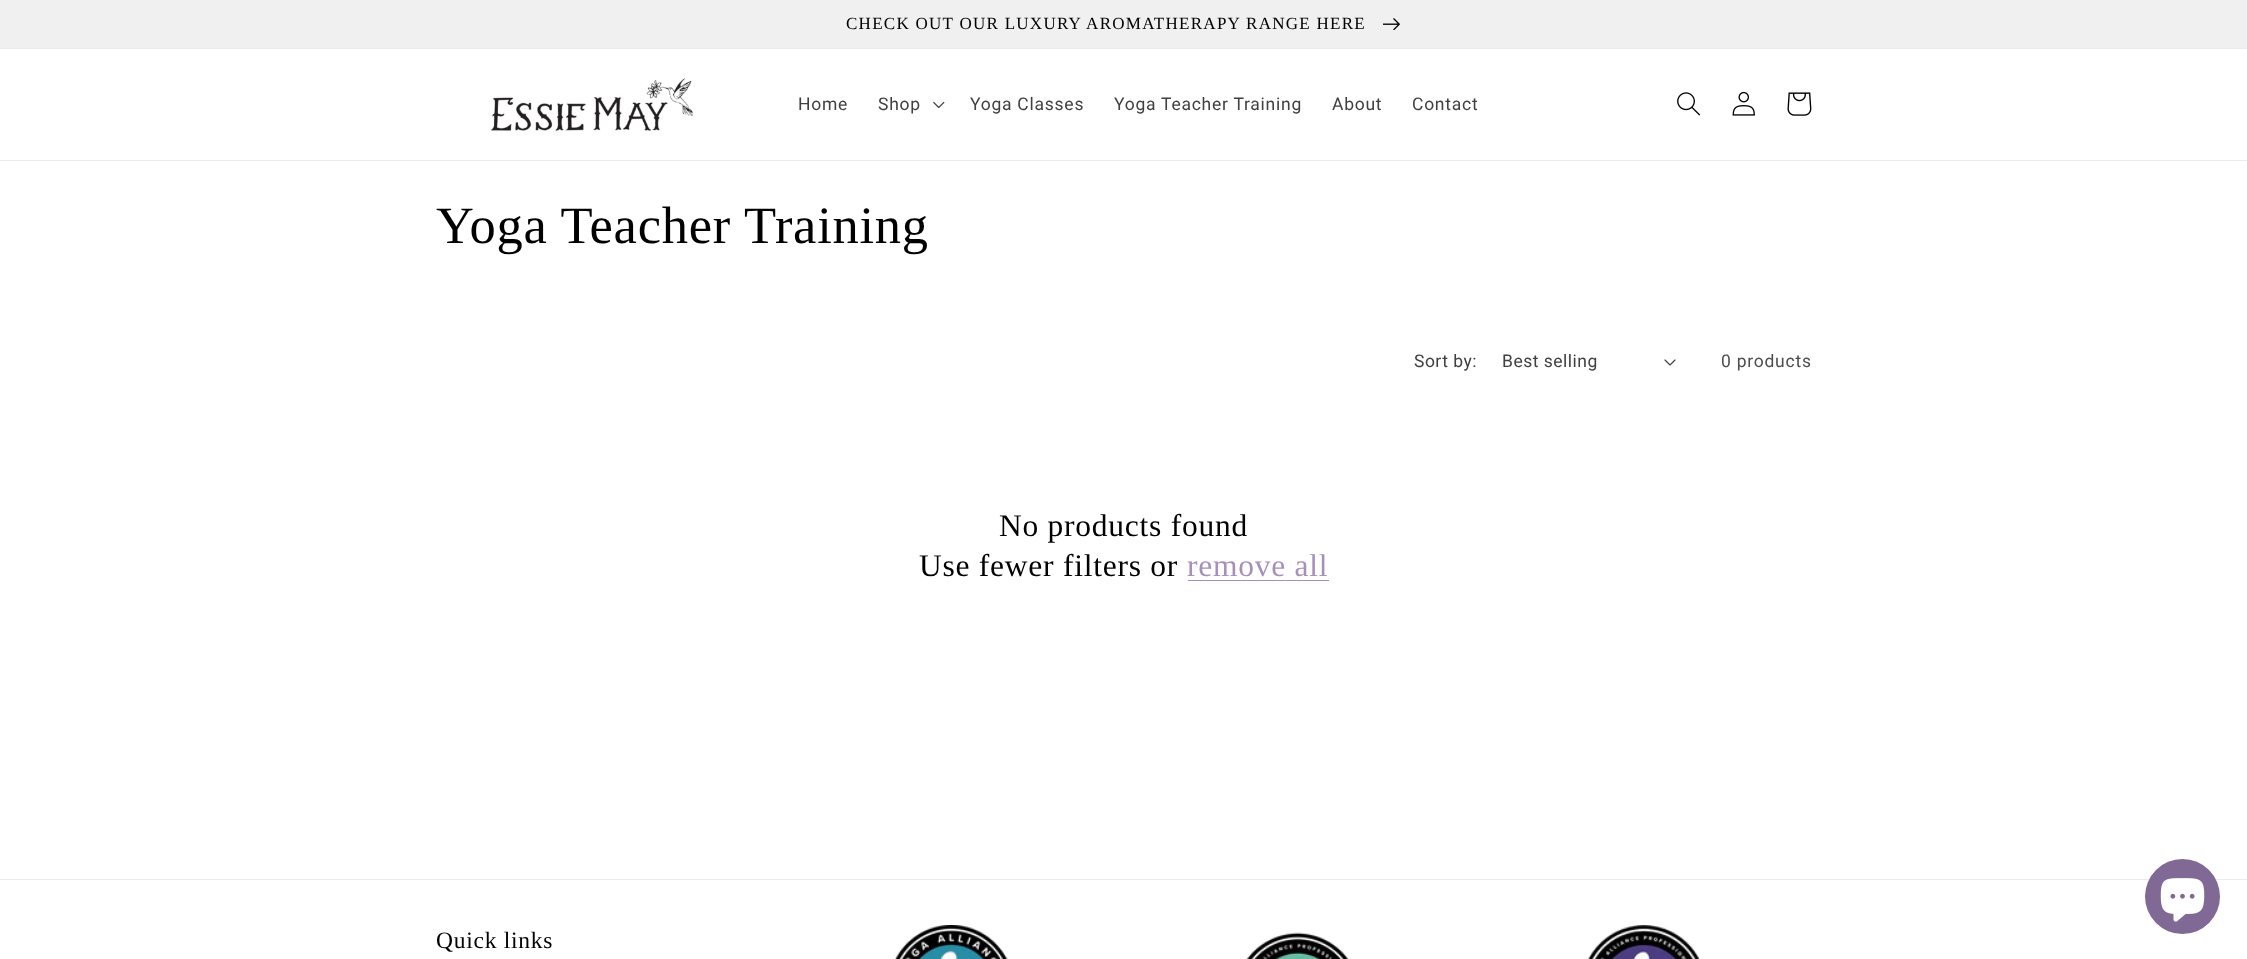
<svg xmlns="http://www.w3.org/2000/svg" xmlns:xlink="http://www.w3.org/1999/xlink" width="2247" height="959" viewBox="0 0 2247 959">
<style>
.cls-1{font:17.05px Liberation Serif;letter-spacing:1.25px;fill:#000000}
.cls-2{font:17.5px Roboto;letter-spacing:0.75px;fill:#404040}
.cls-3{font:52.5px Liberation Serif;letter-spacing:0.75px;fill:#000000}
.cls-4{font:17.5px Roboto;letter-spacing:0.5px;fill:#404040}
.cls-5{font:17.5px Roboto;letter-spacing:0.75px;fill:#4d4d4d}
.cls-6{font:31.5px Liberation Serif;letter-spacing:0.75px;fill:#000000}
.cls-7{font:31.5px Liberation Serif;letter-spacing:0.75px;fill:#a690ba}
.cls-8{font:23.5px Liberation Serif;letter-spacing:0.75px;fill:#000000}
</style>
<rect width="100%" height="100%" fill="#ffffff"/>
<rect fill="#ebebeb" x="0" y="48" width="2247" height="1"/>
<rect fill="#f0f0f0" x="0" y="0" width="2247" height="48"/>
<image xlink:href="image0.png" x="1383" y="18" width="17" height="12"/>
<rect fill="#ebebeb" x="0" y="160" width="2247" height="1"/>
<image xlink:href="image1.png" x="490" y="78" width="204" height="54"/>
<image xlink:href="image2.png" x="933" y="101" width="12" height="8"/>
<image xlink:href="image3.png" x="1677" y="92" width="23" height="24"/>
<image xlink:href="image4.png" x="1732" y="91" width="23" height="25"/>
<image xlink:href="image5.png" x="1787" y="92" width="25" height="24"/>
<image xlink:href="image6.png" x="1664" y="359" width="12" height="7"/>
<rect fill="#a690ba" x="1188" y="580" width="141" height="1"/>
<rect fill="#ebebeb" x="0" y="879" width="2247" height="1"/>
<circle fill="#806994" cx="2182.5" cy="896.5" r="37.5"/>
<image xlink:href="image7.png" x="2160" y="878" width="45" height="44"/>
<image xlink:href="image8.png" x="895" y="925" width="113" height="34"/>
<image xlink:href="image9.png" x="1246" y="932" width="103" height="27"/>
<image xlink:href="image10.png" x="1587" y="925" width="113" height="34"/>
<text class="cls-1" x="846" y="29">CHECK OUT OUR LUXURY AROMATHERAPY RANGE HERE</text>
<text class="cls-2" x="798" y="110">Home</text>
<text class="cls-2" x="878" y="110">Shop</text>
<text class="cls-2" x="970" y="110">Yoga Classes</text>
<text class="cls-2" x="1114" y="110">Yoga Teacher Training</text>
<text class="cls-2" x="1332" y="110">About</text>
<text class="cls-2" x="1412" y="110">Contact</text>
<text class="cls-3" x="436" y="243">Yoga Teacher Training</text>
<text class="cls-4" x="1414" y="367">Sort by:</text>
<text class="cls-4" x="1502" y="367">Best selling</text>
<text class="cls-5" x="1721" y="367">0 products</text>
<text class="cls-6" x="999" y="536">No products found</text>
<text class="cls-6" x="919" y="576">Use fewer filters or</text>
<text class="cls-7" x="1187" y="576">remove all</text>
<text class="cls-8" x="436" y="948">Quick links</text>
</svg>
